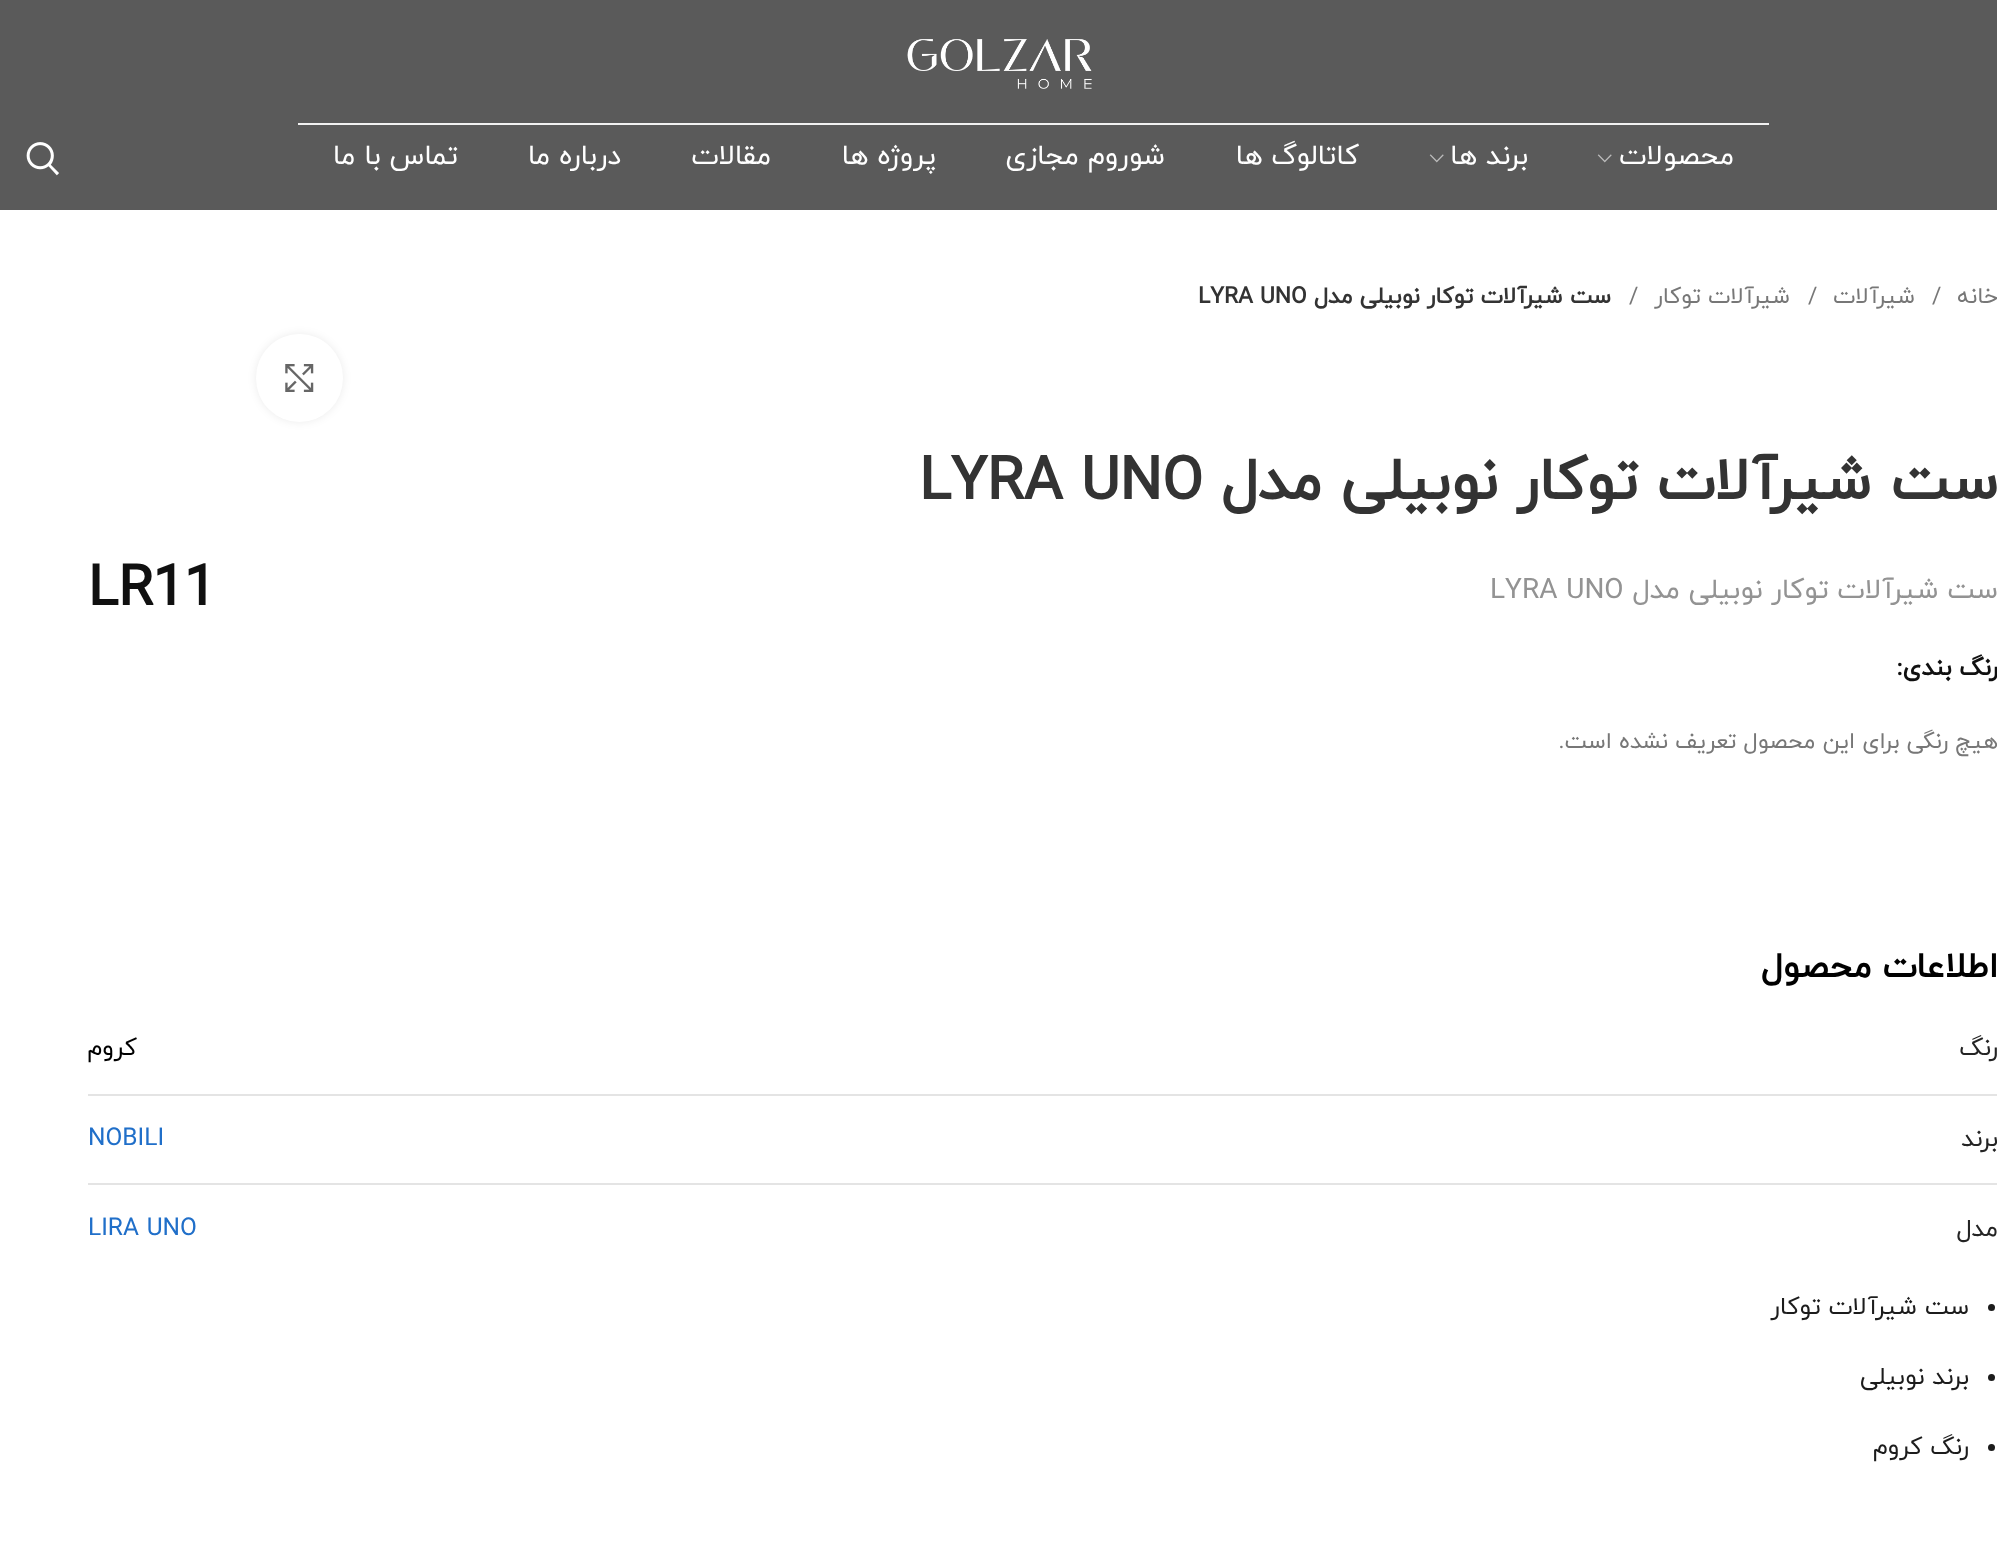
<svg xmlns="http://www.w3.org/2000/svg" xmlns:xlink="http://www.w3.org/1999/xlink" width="1997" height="1547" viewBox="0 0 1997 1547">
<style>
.cls-1{font:28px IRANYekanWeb;direction:rtl;fill:#ffffff}
.cls-2{font:22.75px IRANYekanWeb;direction:rtl;fill:#777777}
.cls-3{font:22.75px IRANYekanWeb;fill:#777777}
.cls-4{font:bold 22.75px IRANYekanWeb;direction:rtl;fill:#333333}
.cls-5{font:bold 22.75px IRANYekanWeb;fill:#333333}
.cls-6{font:bold 59.5px IRANYekanWeb;direction:rtl;fill:#333333}
.cls-7{font:bold 59.5px IRANYekanWeb;fill:#333333}
.cls-8{font:28px IRANYekanWeb;direction:rtl;fill:#939393}
.cls-9{font:28px IRANYekanWeb;fill:#939393}
.cls-10{font:bold 56px IRANYekanWeb;fill:#101010}
.cls-11{font:bold 24.5px IRANYekanWeb;direction:rtl;fill:#101010}
.cls-12{font:bold 35px IRANYekanWeb;direction:rtl;fill:#000000}
.cls-13{font:24.5px IRANYekanWeb;direction:rtl;fill:#242424}
.cls-14{font:24.5px IRANYekanWeb;direction:rtl;fill:#000000}
.cls-15{font:24.5px IRANYekanWeb;fill:#206fc9}
.cls-16{font:24.5px IRANYekanWeb;direction:rtl;fill:#1c1c1c}
</style>
<rect width="100%" height="100%" fill="#ffffff"/>
<rect fill="#5a5a5a" x="0" y="0" width="1997" height="210"/>
<image xlink:href="image0.png" x="907" y="39" width="185" height="50"/>
<rect fill="#f1f1f1" x="298" y="123" width="1471" height="2"/>
<image xlink:href="image1.png" x="1597" y="154" width="15" height="9"/>
<image xlink:href="image1.png" x="1429" y="154" width="15" height="9"/>
<image xlink:href="image2.png" x="26" y="142" width="33" height="34"/>
<rect fill="#000000" fill-opacity="0.08" filter="blur(4.5px)" x="256" y="334" width="87" height="88" rx="43.5"/>
<rect fill="#ffffff" x="256" y="334" width="87" height="88" rx="43.5"/>
<image xlink:href="image3.png" x="285" y="364" width="29" height="28"/>
<rect fill="#e4e4e4" x="88" y="1094" width="1909" height="2"/>
<rect fill="#e4e4e4" x="88" y="1183" width="1909" height="2"/>
<circle fill="#1c1c1c" cx="1991.5" cy="1307.5" r="3.5"/>
<circle fill="#1c1c1c" cx="1991.5" cy="1377.5" r="3.5"/>
<circle fill="#1c1c1c" cx="1991.5" cy="1447.5" r="3.5"/>
<text class="cls-1" x="1734" y="164">محصولات</text>
<text class="cls-1" x="1528" y="164">برند ها</text>
<text class="cls-1" x="1359" y="164">کاتالوگ ها</text>
<text class="cls-1" x="1165" y="164">شوروم مجازی</text>
<text class="cls-1" x="936" y="164">پروژه ها</text>
<text class="cls-1" x="771" y="164">مقالات</text>
<text class="cls-1" x="621" y="164">درباره ما</text>
<text class="cls-1" x="458" y="164">تماس با ما</text>
<text class="cls-2" x="1998" y="303">خانه</text>
<text class="cls-3" x="1932" y="303">/</text>
<text class="cls-2" x="1915" y="303">شیرآلات</text>
<text class="cls-3" x="1808" y="303">/</text>
<text class="cls-2" x="1790" y="303">شیرآلات توکار</text>
<text class="cls-3" x="1629" y="303">/</text>
<text class="cls-4" x="1611" y="303">ست شیرآلات توکار نوبیلی مدل</text>
<text class="cls-5" x="1198" y="303">LYRA UNO</text>
<text class="cls-6" x="1998" y="499">ست شیرآلات توکار نوبیلی مدل</text>
<text class="cls-7" x="919" y="499">LYRA UNO</text>
<text class="cls-8" x="1998" y="598">ست شیرآلات توکار نوبیلی مدل</text>
<text class="cls-9" x="1490" y="598">LYRA UNO</text>
<text class="cls-10" x="88" y="605">LR11</text>
<text class="cls-11" x="1998" y="675">رنگ بندی:</text>
<text class="cls-2" x="1998" y="748">هیچ رنگی برای این محصول تعریف نشده است.</text>
<text class="cls-12" x="1998" y="977">اطلاعات محصول</text>
<text class="cls-13" x="1998" y="1055">رنگ</text>
<text class="cls-14" x="137" y="1055">کروم</text>
<text class="cls-13" x="1998" y="1146">برند</text>
<text class="cls-15" x="88" y="1145">NOBILI</text>
<text class="cls-13" x="1998" y="1236">مدل</text>
<text class="cls-15" x="88" y="1235">LIRA UNO</text>
<text class="cls-16" x="1969" y="1314">ست شیرآلات توکار</text>
<text class="cls-16" x="1969" y="1384">برند نوبیلی</text>
<text class="cls-16" x="1969" y="1454">رنگ کروم</text>
</svg>
